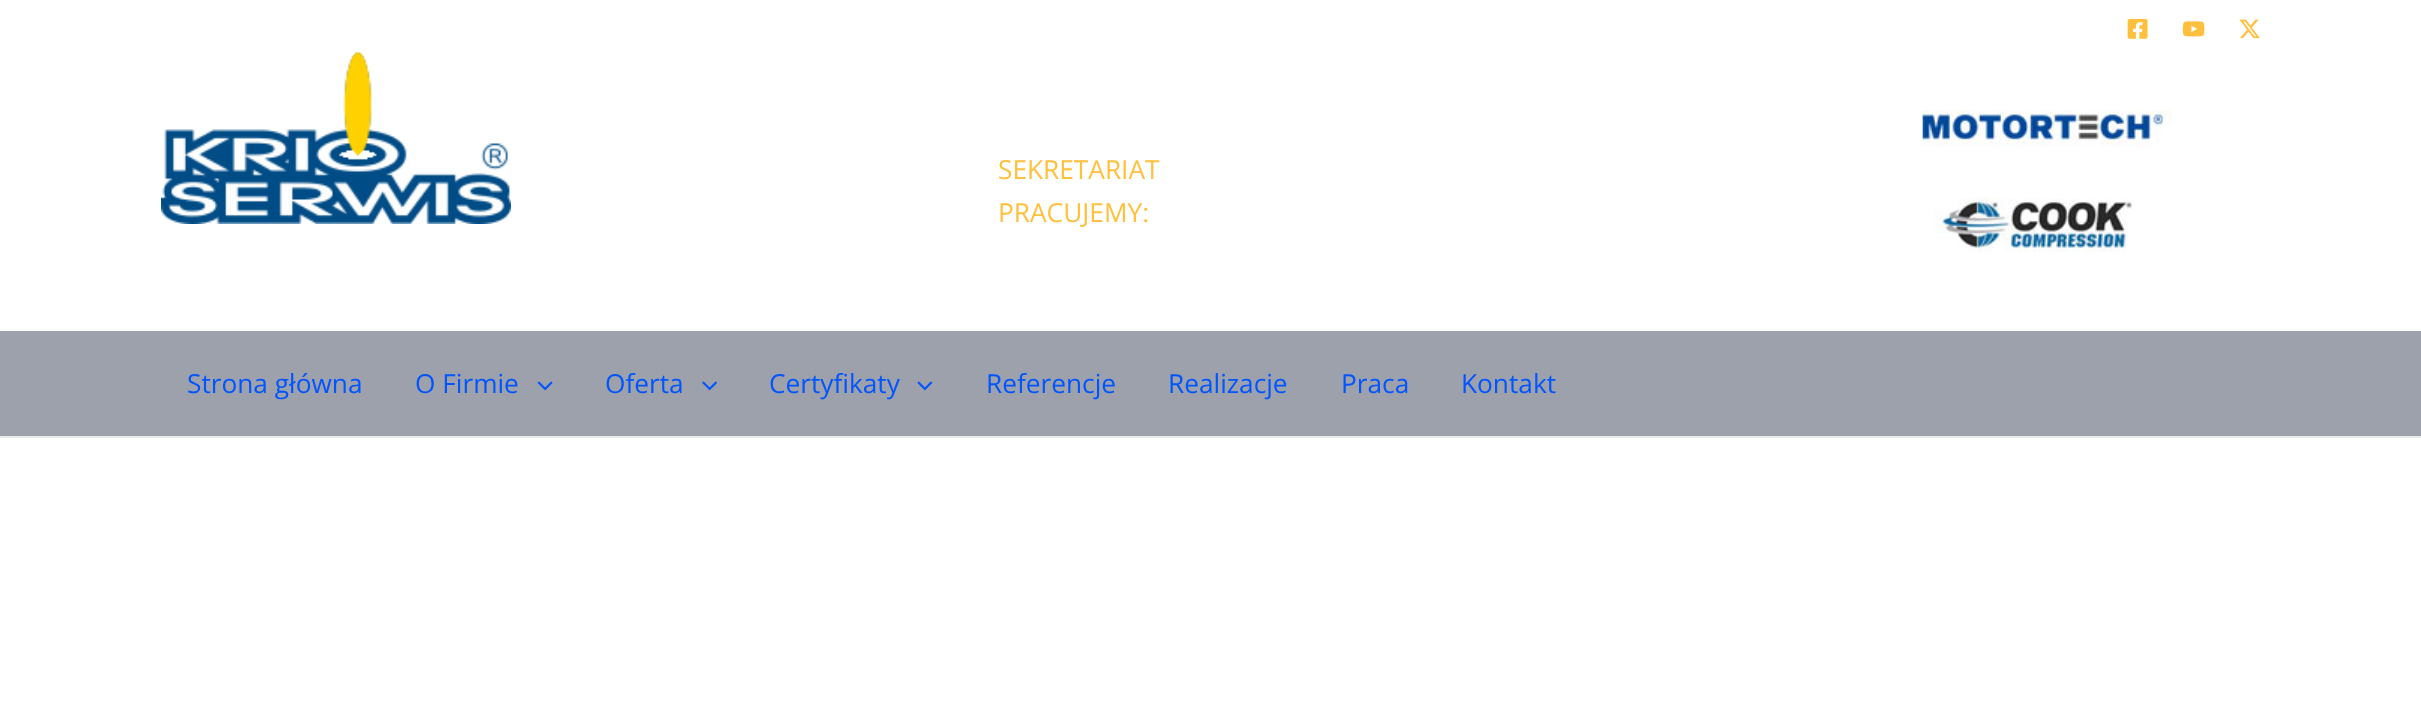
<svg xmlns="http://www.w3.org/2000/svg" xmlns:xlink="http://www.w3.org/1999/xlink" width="2421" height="723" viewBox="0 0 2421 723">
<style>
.cls-1{font:26.25px Open Sans;fill:#ffc03d}
.cls-2{font:26.25px Open Sans;fill:#0055ff}
</style>
<rect width="100%" height="100%" fill="#ffffff"/>
<image xlink:href="image0.png" x="2127" y="18" width="21" height="21"/>
<image xlink:href="image1.png" x="2182" y="21" width="23" height="16"/>
<image xlink:href="image2.png" x="2239" y="19" width="21" height="20"/>
<rect fill="#fafafa" x="0" y="329" width="2421" height="2"/>
<image xlink:href="image3.png" x="161" y="52" width="350" height="172"/>
<image xlink:href="image4.png" x="1921" y="110" width="251" height="37"/>
<image xlink:href="image5.png" x="1933" y="197" width="200" height="55"/>
<rect fill="#9ca1ac" x="0" y="331" width="2421" height="105"/>
<rect fill="#eaeaea" x="0" y="436" width="2421" height="2"/>
<image xlink:href="image6.png" x="537" y="381" width="16" height="10"/>
<image xlink:href="image7.png" x="702" y="381" width="16" height="10"/>
<image xlink:href="image8.png" x="917" y="381" width="16" height="10"/>
<text class="cls-1"><tspan x="998" y="179">SEKRETARIAT</tspan><tspan x="998" y="222">PRACUJEMY:</tspan></text>
<text class="cls-2" x="187" y="393">Strona główna</text>
<text class="cls-2" x="415" y="393">O Firmie</text>
<text class="cls-2" x="605" y="393">Oferta</text>
<text class="cls-2" x="769" y="393">Certyfikaty</text>
<text class="cls-2" x="986" y="393">Referencje</text>
<text class="cls-2" x="1168" y="393">Realizacje</text>
<text class="cls-2" x="1341" y="393">Praca</text>
<text class="cls-2" x="1461" y="393">Kontakt</text>
</svg>
